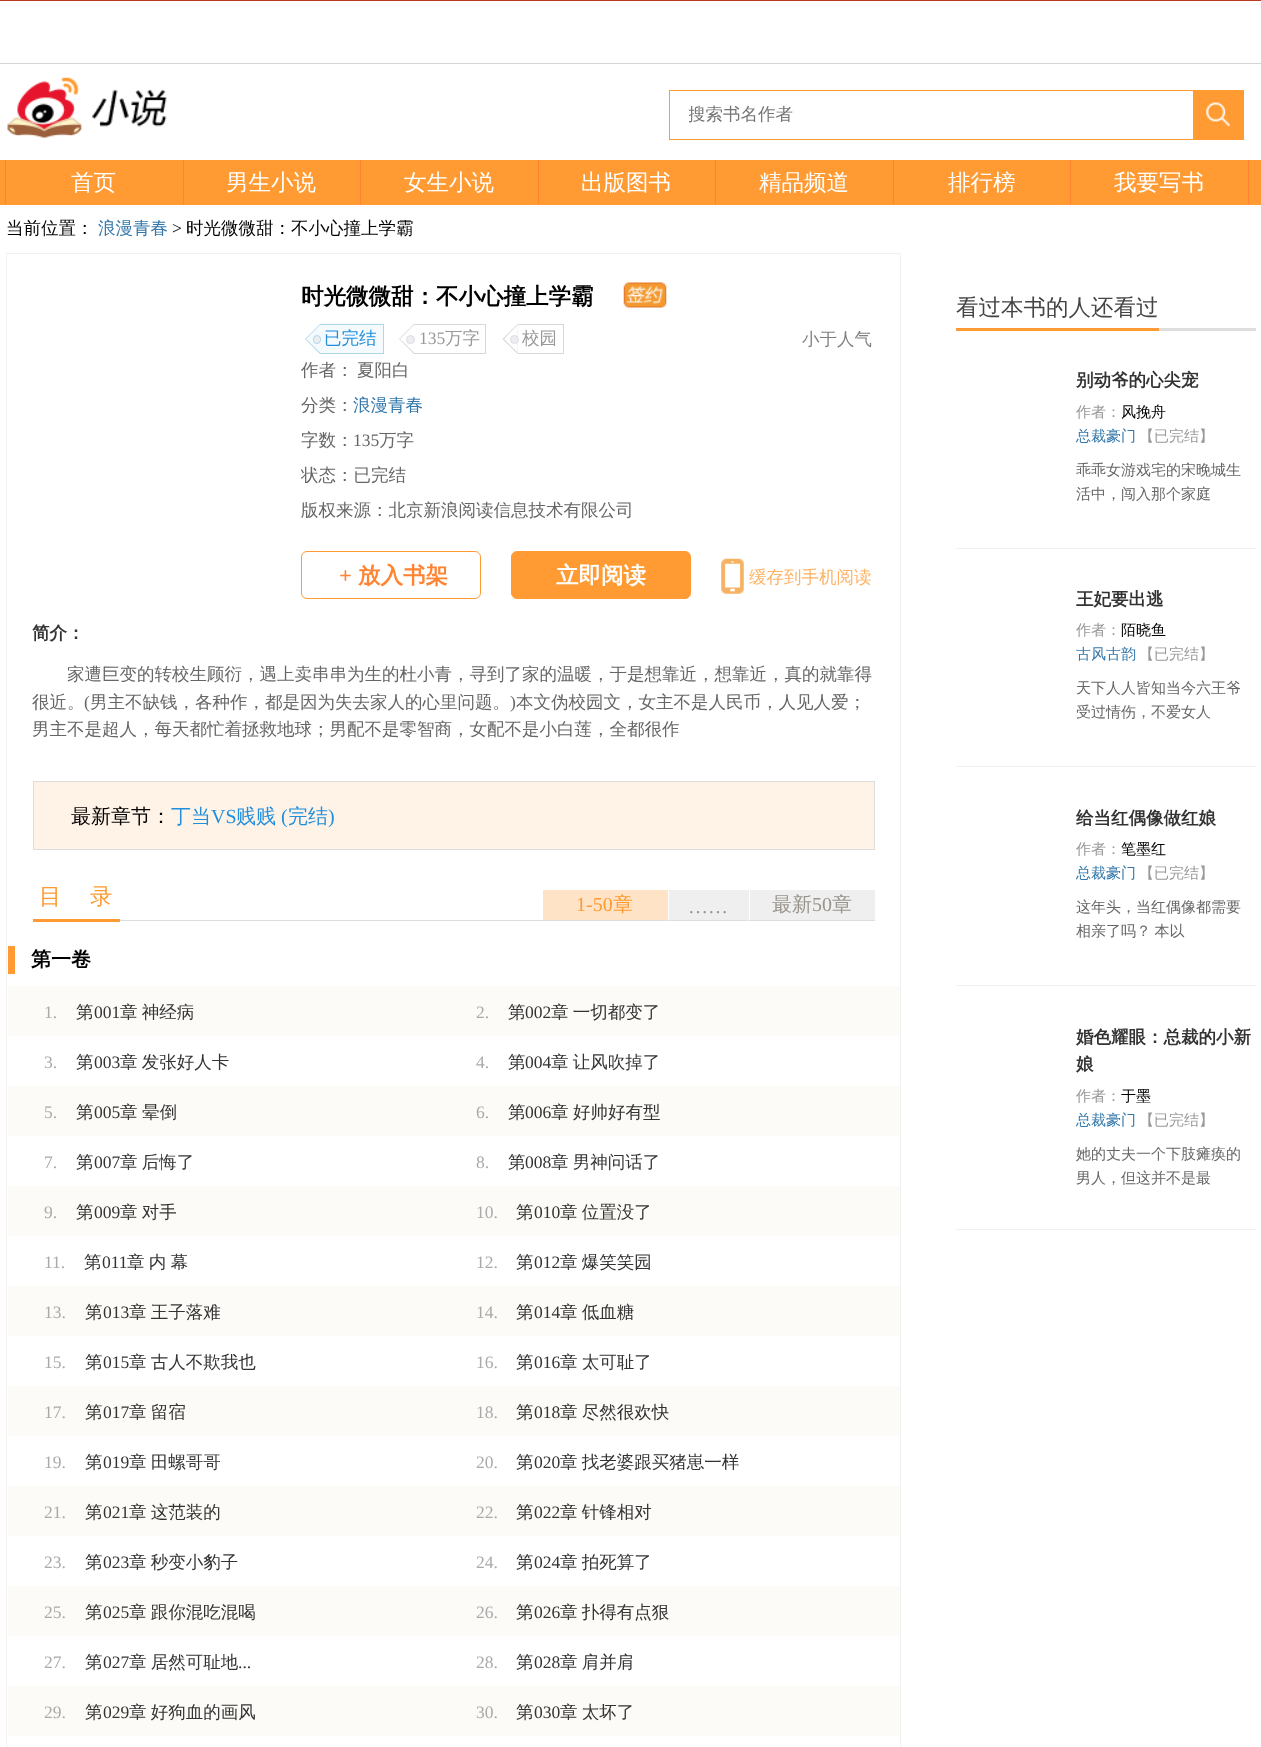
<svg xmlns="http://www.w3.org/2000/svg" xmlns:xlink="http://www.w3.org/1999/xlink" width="1261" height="1747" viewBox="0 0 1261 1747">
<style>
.cls-1{font:500 17.5px WenQuanYi Zen Hei;fill:#757575}
.cls-2{font:500 22.5px WenQuanYi Zen Hei;fill:#ffffff}
.cls-3{font:500 17.5px WenQuanYi Zen Hei;fill:#000000}
.cls-4{font:500 17.5px WenQuanYi Zen Hei;fill:#3377aa}
.cls-5{font:17.5px Liberation Serif;fill:#000000}
.cls-6{font:bold 22.5px WenQuanYi Zen Hei;fill:#000000}
.cls-7{font:500 17.5px WenQuanYi Zen Hei;fill:#228fdd}
.cls-8{font:17.5px Liberation Serif;fill:#999999}
.cls-9{font:500 17.5px WenQuanYi Zen Hei;fill:#999999}
.cls-10{font:500 17.5px WenQuanYi Zen Hei;fill:#808080}
.cls-11{font:500 17.5px WenQuanYi Zen Hei;fill:#666666}
.cls-12{font:17.5px Liberation Serif;fill:#666666}
.cls-13{font:bold 22.5px Liberation Serif;fill:#ff8432}
.cls-14{font:bold 22.5px WenQuanYi Zen Hei;fill:#ff8432}
.cls-15{font:bold 22.5px WenQuanYi Zen Hei;fill:#ffffff}
.cls-16{font:500 17.5px WenQuanYi Zen Hei;fill:#ffb364}
.cls-17{font:bold 17.5px WenQuanYi Zen Hei;fill:#333333}
.cls-18{font:500 20px WenQuanYi Zen Hei;fill:#000000}
.cls-19{font:500 20px WenQuanYi Zen Hei;fill:#228fdd}
.cls-20{font:20px Liberation Serif;fill:#228fdd}
.cls-21{font:500 22.5px WenQuanYi Zen Hei;fill:#ff9b32}
.cls-22{font:20px Liberation Serif;fill:#ff9b32}
.cls-23{font:500 20px WenQuanYi Zen Hei;fill:#ff9b32}
.cls-24{font:20px Liberation Serif;fill:#99958b}
.cls-25{font:500 20px WenQuanYi Zen Hei;fill:#99958b}
.cls-26{font:bold 20px WenQuanYi Zen Hei;fill:#000000}
.cls-27{font:17.5px Liberation Serif;fill:#aaaaaa}
.cls-28{font:500 17.5px WenQuanYi Zen Hei;fill:#333333}
.cls-29{font:17.5px Liberation Serif;fill:#333333}
.cls-30{font:500 22.5px WenQuanYi Zen Hei;fill:#444444}
.cls-31{font:500 15px WenQuanYi Zen Hei;fill:#999999}
.cls-32{font:500 15px WenQuanYi Zen Hei;fill:#000000}
.cls-33{font:500 15px WenQuanYi Zen Hei;fill:#3377aa}
.cls-34{font:500 15px WenQuanYi Zen Hei;fill:#666666}
</style>
<defs>
<clipPath id="clip1"><rect x="689" y="104" width="485" height="22"/></clipPath>
<clipPath id="clip2"><rect x="301" y="273" width="572" height="327"/></clipPath>
</defs>
<rect width="100%" height="100%" fill="#ffffff"/>
<rect fill="#bb3923" x="0" y="0" width="1261" height="1"/>
<rect fill="#d5d5d5" x="0" y="63" width="1261" height="1"/>
<image xlink:href="image0.png" x="7" y="77" width="160" height="61"/>
<rect fill="none" stroke="#ff9b32" x="669.5" y="90.5" width="524" height="49"/>
<rect fill="#ff9b32" x="1194" y="90" width="50" height="50"/>
<image xlink:href="image1.png" x="1206" y="102" width="25" height="25"/>
<rect fill="#ff9b32" x="0" y="160" width="1261" height="45"/>
<rect fill="#ff8432" x="5" y="160" width="1" height="45"/>
<rect fill="#ff8432" x="183" y="160" width="1" height="45"/>
<rect fill="#ff8432" x="360" y="160" width="1" height="45"/>
<rect fill="#ff8432" x="538" y="160" width="1" height="45"/>
<rect fill="#ff8432" x="715" y="160" width="1" height="45"/>
<rect fill="#ff8432" x="893" y="160" width="1" height="45"/>
<rect fill="#ff8432" x="1070" y="160" width="1" height="45"/>
<rect fill="#ff8432" x="1248" y="160" width="1" height="45"/>
<rect fill="none" stroke="#f1f1f1" x="6.5" y="253.5" width="894" height="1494"/>
<image xlink:href="image2.png" x="623" y="282" width="44" height="26"/>
<path fill="#afd7eb" d="M320 324V354L305 339Z"/>
<path fill="#f5faff" d="M320 325V352.5L306 339Z"/>
<rect fill="#f5faff" x="320" y="325" width="63" height="28"/>
<rect fill="#afd7eb" x="320" y="324" width="64" height="1"/>
<rect fill="#afd7eb" x="383" y="324" width="1" height="30"/>
<rect fill="#afd7eb" x="320" y="353" width="64" height="1"/>
<rect fill="#eceef3" stroke="#afd7eb" x="313.5" y="335.5" width="7" height="8" rx="3.5"/>
<path fill="#d8d8d8" d="M414 324V354L399 339Z"/>
<path fill="#ffffff" d="M414 325V352.5L400 339Z"/>
<rect fill="#d8d8d8" x="414" y="324" width="72" height="1"/>
<rect fill="#d8d8d8" x="485" y="324" width="1" height="30"/>
<rect fill="#d8d8d8" x="414" y="353" width="72" height="1"/>
<circle fill="#eceef3" stroke="#dcdddf" cx="410.5" cy="339.5" r="4"/>
<path fill="#d8d8d8" d="M517.5 324V354L502.5 339Z"/>
<path fill="#ffffff" d="M517.5 325V352.5L504 339Z"/>
<rect fill="#d8d8d8" x="518" y="324" width="46" height="1"/>
<rect fill="#d8d8d8" x="563" y="324" width="1" height="30"/>
<rect fill="#d8d8d8" x="518" y="353" width="46" height="1"/>
<circle fill="#eceef3" stroke="#dcdddf" cx="514.5" cy="339.5" r="4"/>
<rect fill="none" stroke="#ff9b32" x="301.5" y="551.5" width="179" height="47" rx="5.5"/>
<rect fill="#ff9b32" stroke="#ff9b32" x="511.5" y="551.5" width="179" height="47" rx="5.5"/>
<image xlink:href="image3.png" x="721" y="558" width="23" height="36"/>
<rect fill="#fff3e7" stroke="#dddddd" x="33.5" y="781.5" width="841" height="68"/>
<rect fill="#dddddd" x="120" y="920" width="755" height="1"/>
<rect fill="#ff9b32" x="33" y="919" width="87" height="3"/>
<rect fill="#ffe3c6" x="543" y="890" width="125" height="30"/>
<rect fill="#efefef" x="670" y="890" width="78" height="30"/>
<rect fill="#efefef" x="748" y="890" width="1" height="31"/>
<rect fill="#efefef" x="669" y="890" width="1" height="31"/>
<rect fill="#efefef" x="750" y="890" width="125" height="30"/>
<rect fill="#ff9b32" x="8" y="946" width="7" height="28"/>
<rect fill="#fcfbf7" x="8" y="986" width="892" height="50"/>
<rect fill="#fcfbf7" x="8" y="1086" width="892" height="50"/>
<rect fill="#fcfbf7" x="8" y="1186" width="892" height="50"/>
<rect fill="#fcfbf7" x="8" y="1286" width="892" height="50"/>
<rect fill="#fcfbf7" x="8" y="1386" width="892" height="50"/>
<rect fill="#fcfbf7" x="8" y="1486" width="892" height="50"/>
<rect fill="#fcfbf7" x="8" y="1586" width="892" height="50"/>
<rect fill="#fcfbf7" x="8" y="1686" width="892" height="50"/>
<rect fill="#dddddd" x="1159" y="328" width="97" height="3"/>
<rect fill="#ff9b32" x="956" y="328" width="203" height="3"/>
<rect fill="#f1f1f1" x="956" y="548" width="300" height="1"/>
<rect fill="#f1f1f1" x="956" y="766" width="300" height="1"/>
<rect fill="#f1f1f1" x="956" y="985" width="300" height="1"/>
<rect fill="#f1f1f1" x="956" y="1229" width="300" height="1"/>
<g clip-path="url(#clip1)">
<text class="cls-1" x="688" y="120">搜索书名作者</text>
</g>
<text class="cls-2" x="71" y="190">首页</text>
<text class="cls-2" x="226" y="190">男生小说</text>
<text class="cls-2" x="404" y="190">女生小说</text>
<text class="cls-2" x="581" y="190">出版图书</text>
<text class="cls-2" x="759" y="190">精品频道</text>
<text class="cls-2" x="948" y="190">排行榜</text>
<text class="cls-2" x="1114" y="190">我要写书</text>
<text class="cls-3" x="6" y="234">当前位置：</text>
<text class="cls-4" x="98" y="234">浪漫青春</text>
<text class="cls-5" x="172" y="234">&gt;</text>
<text class="cls-3" x="186" y="234">时光微微甜：不小心撞上学霸</text>
<text class="cls-6" x="301" y="304">时光微微甜：不小心撞上学霸</text>
<text class="cls-7" x="324" y="344">已完结</text>
<text class="cls-8" x="419" y="344">135</text>
<text class="cls-9" x="445" y="344">万字</text>
<text class="cls-9" x="522" y="344">校园</text>
<text class="cls-10" x="802" y="345">小于人气</text>
<text class="cls-11" x="301" y="376">作者：</text>
<text class="cls-11" x="357" y="376">夏阳白</text>
<text class="cls-11" x="301" y="411">分类：</text>
<text class="cls-4" x="353" y="411">浪漫青春</text>
<text class="cls-11" x="301" y="446">字数：</text>
<text class="cls-12" x="353" y="446">135</text>
<text class="cls-11" x="379" y="446">万字</text>
<g clip-path="url(#clip2)">
<text class="cls-11" x="301" y="481">状态：已完结</text>
</g>
<text class="cls-11" x="301" y="516">版权来源：北京新浪阅读信息技术有限公司</text>
<text class="cls-13" x="339" y="583">+</text>
<text class="cls-14" x="358" y="583">放入书架</text>
<text class="cls-15" x="556" y="583">立即阅读</text>
<text class="cls-16" x="749" y="583">缓存到手机阅读</text>
<text class="cls-17" x="32" y="639">简介：</text>
<text class="cls-11" x="67" y="680">家遭巨变的转校生顾衍，遇上卖串串为生的杜小青，寻到了家的温暖，于是想靠近，想靠近，真的就靠得</text>
<text class="cls-11" x="32" y="708">很近。</text>
<text class="cls-12" x="84" y="708">(</text>
<text class="cls-11" x="90" y="708">男主不缺钱，各种作，都是因为失去家人的心里问题。</text>
<text class="cls-12" x="510" y="708">)</text>
<text class="cls-11" x="516" y="708">本文伪校园文，女主不是人民币，人见人爱；</text>
<text class="cls-11" x="32" y="735">男主不是超人，每天都忙着拯救地球；男配不是零智商，女配不是小白莲，全都很作</text>
<text class="cls-18" x="71" y="823">最新章节：</text>
<text class="cls-19" x="171" y="823">丁当</text>
<text class="cls-20" x="211" y="823">VS</text>
<text class="cls-19" x="236" y="823">贱贱</text>
<text class="cls-20" x="281" y="823">(</text>
<text class="cls-19" x="288" y="823">完结</text>
<text class="cls-20" x="328" y="823">)</text>
<text class="cls-21" x="39" y="904">目</text>
<text class="cls-21" x="90" y="904">录</text>
<text class="cls-22" x="576" y="911">1-50</text>
<text class="cls-23" x="613" y="911">章</text>
<text class="cls-24" x="688" y="913">……</text>
<text class="cls-25" x="772" y="911">最新</text>
<text class="cls-24" x="812" y="911">50</text>
<text class="cls-25" x="832" y="911">章</text>
<text class="cls-26" x="31" y="966">第一卷</text>
<text class="cls-27" x="44" y="1018">1.</text>
<text class="cls-28" x="76" y="1018">第</text>
<text class="cls-29" x="94" y="1018">001</text>
<text class="cls-28" x="120" y="1018" word-spacing="-1">章 神经病</text>
<text class="cls-27" x="476" y="1018">2.</text>
<text class="cls-28" x="508" y="1018">第</text>
<text class="cls-29" x="525" y="1018">002</text>
<text class="cls-28" x="551" y="1018" word-spacing="-1">章 一切都变了</text>
<text class="cls-27" x="44" y="1068">3.</text>
<text class="cls-28" x="76" y="1068">第</text>
<text class="cls-29" x="94" y="1068">003</text>
<text class="cls-28" x="120" y="1068" word-spacing="-1">章 发张好人卡</text>
<text class="cls-27" x="476" y="1068">4.</text>
<text class="cls-28" x="508" y="1068">第</text>
<text class="cls-29" x="525" y="1068">004</text>
<text class="cls-28" x="551" y="1068" word-spacing="-1">章 让风吹掉了</text>
<text class="cls-27" x="44" y="1118">5.</text>
<text class="cls-28" x="76" y="1118">第</text>
<text class="cls-29" x="94" y="1118">005</text>
<text class="cls-28" x="120" y="1118">章</text>
<text class="cls-28" x="142" y="1118">晕倒</text>
<text class="cls-27" x="476" y="1118">6.</text>
<text class="cls-28" x="508" y="1118">第</text>
<text class="cls-29" x="525" y="1118">006</text>
<text class="cls-28" x="551" y="1118">章</text>
<text class="cls-28" x="573" y="1118">好帅好有型</text>
<text class="cls-27" x="44" y="1168">7.</text>
<text class="cls-28" x="76" y="1168">第</text>
<text class="cls-29" x="94" y="1168">007</text>
<text class="cls-28" x="120" y="1168" word-spacing="-1">章 后悔了</text>
<text class="cls-27" x="476" y="1168">8.</text>
<text class="cls-28" x="508" y="1168">第</text>
<text class="cls-29" x="525" y="1168">008</text>
<text class="cls-28" x="551" y="1168" word-spacing="-1">章 男神问话了</text>
<text class="cls-27" x="44" y="1218">9.</text>
<text class="cls-28" x="76" y="1218">第</text>
<text class="cls-29" x="94" y="1218">009</text>
<text class="cls-28" x="120" y="1218" word-spacing="-1">章 对手</text>
<text class="cls-27" x="476" y="1218">10.</text>
<text class="cls-28" x="516" y="1218">第</text>
<text class="cls-29" x="534" y="1218">010</text>
<text class="cls-28" x="560" y="1218" word-spacing="-1">章 位置没了</text>
<text class="cls-27" x="44" y="1268">11.</text>
<text class="cls-28" x="84" y="1268">第</text>
<text class="cls-29" x="102" y="1268">011</text>
<text class="cls-28" x="127" y="1268" word-spacing="-1">章 内 幕</text>
<text class="cls-27" x="476" y="1268">12.</text>
<text class="cls-28" x="516" y="1268">第</text>
<text class="cls-29" x="534" y="1268">012</text>
<text class="cls-28" x="560" y="1268" word-spacing="-1">章 爆笑笑园</text>
<text class="cls-27" x="44" y="1318">13.</text>
<text class="cls-28" x="85" y="1318">第</text>
<text class="cls-29" x="103" y="1318">013</text>
<text class="cls-28" x="129" y="1318" word-spacing="-1">章 王子落难</text>
<text class="cls-27" x="476" y="1318">14.</text>
<text class="cls-28" x="516" y="1318">第</text>
<text class="cls-29" x="534" y="1318">014</text>
<text class="cls-28" x="560" y="1318" word-spacing="-1">章 低血糖</text>
<text class="cls-27" x="44" y="1368">15.</text>
<text class="cls-28" x="85" y="1368">第</text>
<text class="cls-29" x="103" y="1368">015</text>
<text class="cls-28" x="129" y="1368" word-spacing="-1">章 古人不欺我也</text>
<text class="cls-27" x="476" y="1368">16.</text>
<text class="cls-28" x="516" y="1368">第</text>
<text class="cls-29" x="534" y="1368">016</text>
<text class="cls-28" x="560" y="1368" word-spacing="-1">章 太可耻了</text>
<text class="cls-27" x="44" y="1418">17.</text>
<text class="cls-28" x="85" y="1418">第</text>
<text class="cls-29" x="103" y="1418">017</text>
<text class="cls-28" x="129" y="1418" word-spacing="-1">章 留宿</text>
<text class="cls-27" x="476" y="1418">18.</text>
<text class="cls-28" x="516" y="1418">第</text>
<text class="cls-29" x="534" y="1418">018</text>
<text class="cls-28" x="560" y="1418" word-spacing="-1">章 尽然很欢快</text>
<text class="cls-27" x="44" y="1468">19.</text>
<text class="cls-28" x="85" y="1468">第</text>
<text class="cls-29" x="103" y="1468">019</text>
<text class="cls-28" x="129" y="1468" word-spacing="-1">章 田螺哥哥</text>
<text class="cls-27" x="476" y="1468">20.</text>
<text class="cls-28" x="516" y="1468">第</text>
<text class="cls-29" x="534" y="1468">020</text>
<text class="cls-28" x="560" y="1468" word-spacing="-1">章 找老婆跟买猪崽一样</text>
<text class="cls-27" x="44" y="1518">21.</text>
<text class="cls-28" x="85" y="1518">第</text>
<text class="cls-29" x="103" y="1518">021</text>
<text class="cls-28" x="129" y="1518" word-spacing="-1">章 这范装的</text>
<text class="cls-27" x="476" y="1518">22.</text>
<text class="cls-28" x="516" y="1518">第</text>
<text class="cls-29" x="534" y="1518">022</text>
<text class="cls-28" x="560" y="1518" word-spacing="-1">章 针锋相对</text>
<text class="cls-27" x="44" y="1568">23.</text>
<text class="cls-28" x="85" y="1568">第</text>
<text class="cls-29" x="103" y="1568">023</text>
<text class="cls-28" x="129" y="1568" word-spacing="-1">章 秒变小豹子</text>
<text class="cls-27" x="476" y="1568">24.</text>
<text class="cls-28" x="516" y="1568">第</text>
<text class="cls-29" x="534" y="1568">024</text>
<text class="cls-28" x="560" y="1568" word-spacing="-1">章 拍死算了</text>
<text class="cls-27" x="44" y="1618">25.</text>
<text class="cls-28" x="85" y="1618">第</text>
<text class="cls-29" x="103" y="1618">025</text>
<text class="cls-28" x="129" y="1618" word-spacing="-1">章 跟你混吃混喝</text>
<text class="cls-27" x="476" y="1618">26.</text>
<text class="cls-28" x="516" y="1618">第</text>
<text class="cls-29" x="534" y="1618">026</text>
<text class="cls-28" x="560" y="1618" word-spacing="-1">章 扑得有点狠</text>
<text class="cls-27" x="44" y="1668">27.</text>
<text class="cls-28" x="85" y="1668">第</text>
<text class="cls-29" x="103" y="1668">027</text>
<text class="cls-28" x="129" y="1668" word-spacing="-1">章 居然可耻地</text>
<text class="cls-29" x="238" y="1668">...</text>
<text class="cls-27" x="476" y="1668">28.</text>
<text class="cls-28" x="516" y="1668">第</text>
<text class="cls-29" x="534" y="1668">028</text>
<text class="cls-28" x="560" y="1668" word-spacing="-1">章 肩并肩</text>
<text class="cls-27" x="44" y="1718">29.</text>
<text class="cls-28" x="85" y="1718">第</text>
<text class="cls-29" x="103" y="1718">029</text>
<text class="cls-28" x="129" y="1718" word-spacing="-1">章 好狗血的画风</text>
<text class="cls-27" x="476" y="1718">30.</text>
<text class="cls-28" x="516" y="1718">第</text>
<text class="cls-29" x="534" y="1718">030</text>
<text class="cls-28" x="560" y="1718" word-spacing="-1">章 太坏了</text>
<text class="cls-30" x="956" y="315">看过本书的人还看过</text>
<text class="cls-17" x="1076" y="386">别动爷的心尖宠</text>
<text class="cls-31" x="1076" y="417">作者：</text>
<text class="cls-32" x="1121" y="417">风挽舟</text>
<text class="cls-33" x="1076" y="441">总裁豪门</text>
<text class="cls-31" x="1139" y="441">【已完结】</text>
<text class="cls-34"><tspan x="1076" y="475">乖乖女游戏宅的宋晚城生</tspan><tspan x="1076" y="499">活中，闯入那个家庭</tspan></text>
<text class="cls-17" x="1076" y="605">王妃要出逃</text>
<text class="cls-31" x="1076" y="635">作者：</text>
<text class="cls-32" x="1121" y="635">陌晓鱼</text>
<text class="cls-33" x="1076" y="659">古风古韵</text>
<text class="cls-31" x="1139" y="659">【已完结】</text>
<text class="cls-34"><tspan x="1076" y="693">天下人人皆知当今六王爷</tspan><tspan x="1076" y="717">受过情伤，不爱女人</tspan></text>
<text class="cls-17" x="1076" y="824">给当红偶像做红娘</text>
<text class="cls-31" x="1076" y="854">作者：</text>
<text class="cls-32" x="1121" y="854">笔墨红</text>
<text class="cls-33" x="1076" y="878">总裁豪门</text>
<text class="cls-31" x="1139" y="878">【已完结】</text>
<text class="cls-34"><tspan x="1076" y="912">这年头，当红偶像都需要</tspan><tspan x="1076" y="936" word-spacing="-1">相亲了吗？ 本以</tspan></text>
<text class="cls-17"><tspan x="1076" y="1043">婚色耀眼：总裁的小新</tspan><tspan x="1076" y="1070">娘</tspan></text>
<text class="cls-31" x="1076" y="1101">作者：</text>
<text class="cls-32" x="1121" y="1101">于墨</text>
<text class="cls-33" x="1076" y="1125">总裁豪门</text>
<text class="cls-31" x="1139" y="1125">【已完结】</text>
<text class="cls-34"><tspan x="1076" y="1159">她的丈夫一个下肢瘫痪的</tspan><tspan x="1076" y="1183">男人，但这并不是最</tspan></text>
</svg>
